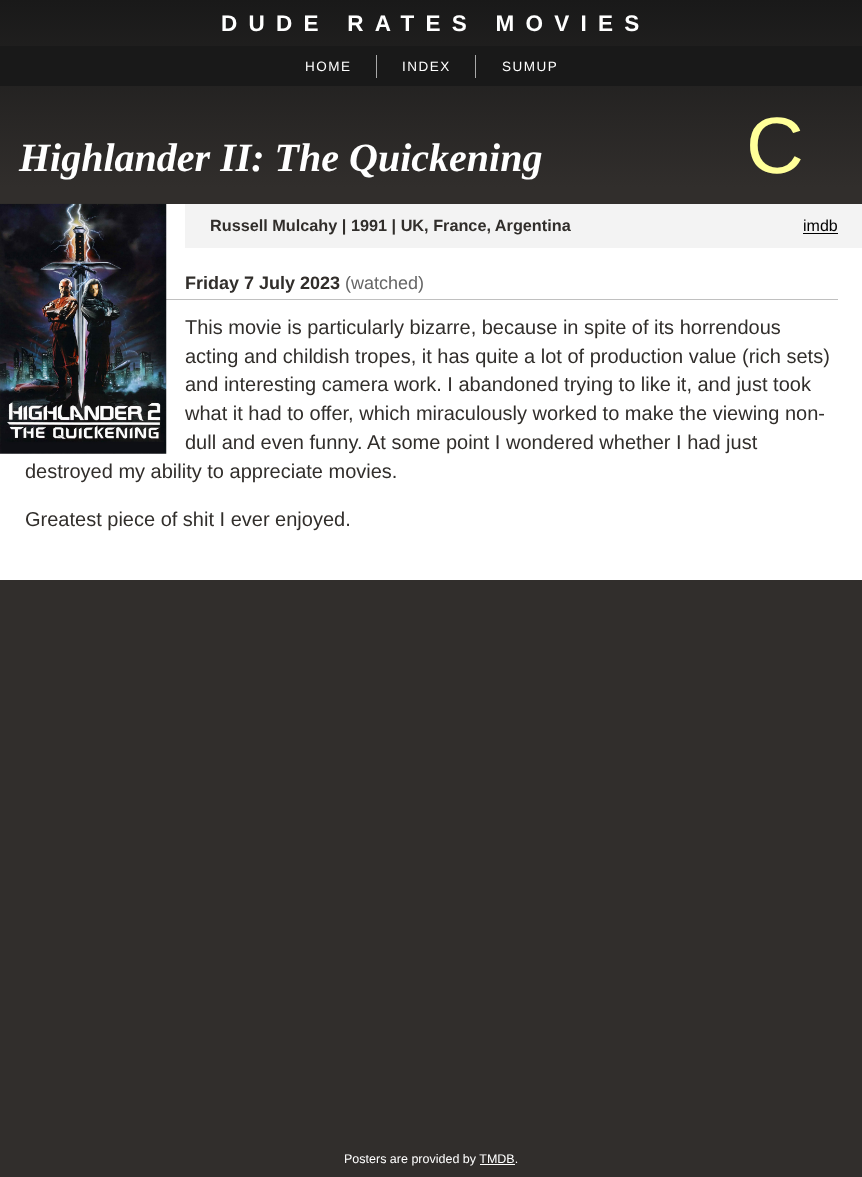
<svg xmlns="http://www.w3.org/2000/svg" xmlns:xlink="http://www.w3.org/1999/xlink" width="862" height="1177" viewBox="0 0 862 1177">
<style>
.cls-1{font:bold 22.5px Liberation Sans;letter-spacing:11.25px;fill:#ffffff}
.cls-2{font:13.5px Liberation Sans;letter-spacing:1.5px;fill:#ffffff}
.cls-3{font:italic bold 40px Liberation Serif;fill:#ffffff}
.cls-4{font:80px Liberation Sans;fill:#ffff99}
.cls-5{font:bold 16.25px Liberation Sans;fill:#312e2b}
.cls-6{font:16px Liberation Sans;fill:#000000}
.cls-7{font:bold 18px Liberation Sans;fill:#312e2b}
.cls-8{font:18px Liberation Sans;fill:#666666}
.cls-9{font:20px Liberation Sans;fill:#312e2b}
.cls-10{font:12.5px Liberation Sans;fill:#ffffff}
</style>
<defs>
<linearGradient id="g1" gradientUnits="userSpaceOnUse" x1="431" y1="0" x2="431" y2="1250"><stop offset="0" stop-color="#191919"/><stop offset="0.15" stop-color="#312e2c"/></linearGradient>
</defs>
<rect width="100%" height="100%" fill="#ffffff"/>
<rect fill="url(#g1)" x="0" y="0" width="862" height="1177"/>
<rect fill="#191919" x="0" y="46" width="862" height="40"/>
<rect fill="#a9a9a9" x="376" y="55" width="1" height="23"/>
<rect fill="#a9a9a9" x="475" y="55" width="1" height="23"/>
<rect fill="#ffffff" x="0" y="204" width="862" height="376"/>
<rect fill="#c0c0c0" x="166" y="299" width="672" height="1"/>
<image xlink:href="image0.png" x="0" y="203" width="167" height="251"/>
<rect fill="#f3f3f3" x="185" y="204" width="677" height="44"/>
<rect fill="#000000" x="803" y="233" width="35" height="1"/>
<rect fill="#ffffff" x="480" y="1164" width="35" height="1"/>
<text class="cls-1" x="221" y="31">DUDE RATES MOVIES</text>
<text class="cls-2" x="305" y="71">HOME</text>
<text class="cls-2" x="402" y="71">INDEX</text>
<text class="cls-2" x="502" y="71">SUMUP</text>
<text class="cls-3" x="19" y="171">Highlander II: The Quickening</text>
<text class="cls-4" x="746" y="173">C</text>
<text class="cls-5" x="210" y="231">Russell Mulcahy | 1991 | UK, France, Argentina</text>
<text class="cls-6" x="803" y="231">imdb</text>
<text class="cls-7" x="185" y="289">Friday 7 July 2023</text>
<text class="cls-8" x="345" y="289">(watched)</text>
<text class="cls-9"><tspan x="185" y="334">This movie is particularly bizarre, because in spite of its horrendous</tspan><tspan x="185" y="363">acting and childish tropes, it has quite a lot of production value (rich sets)</tspan><tspan x="185" y="391">and interesting camera work. I abandoned trying to like it, and just took</tspan><tspan x="185" y="420">what it had to offer, which miraculously worked to make the viewing non-</tspan><tspan x="185" y="449">dull and even funny. At some point I wondered whether I had just</tspan></text>
<text class="cls-9" x="25" y="478">destroyed my ability to appreciate movies.</text>
<text class="cls-9" x="25" y="526">Greatest piece of shit I ever enjoyed.</text>
<text class="cls-10" x="344" y="1163">Posters are provided by TMDB.</text>
</svg>
